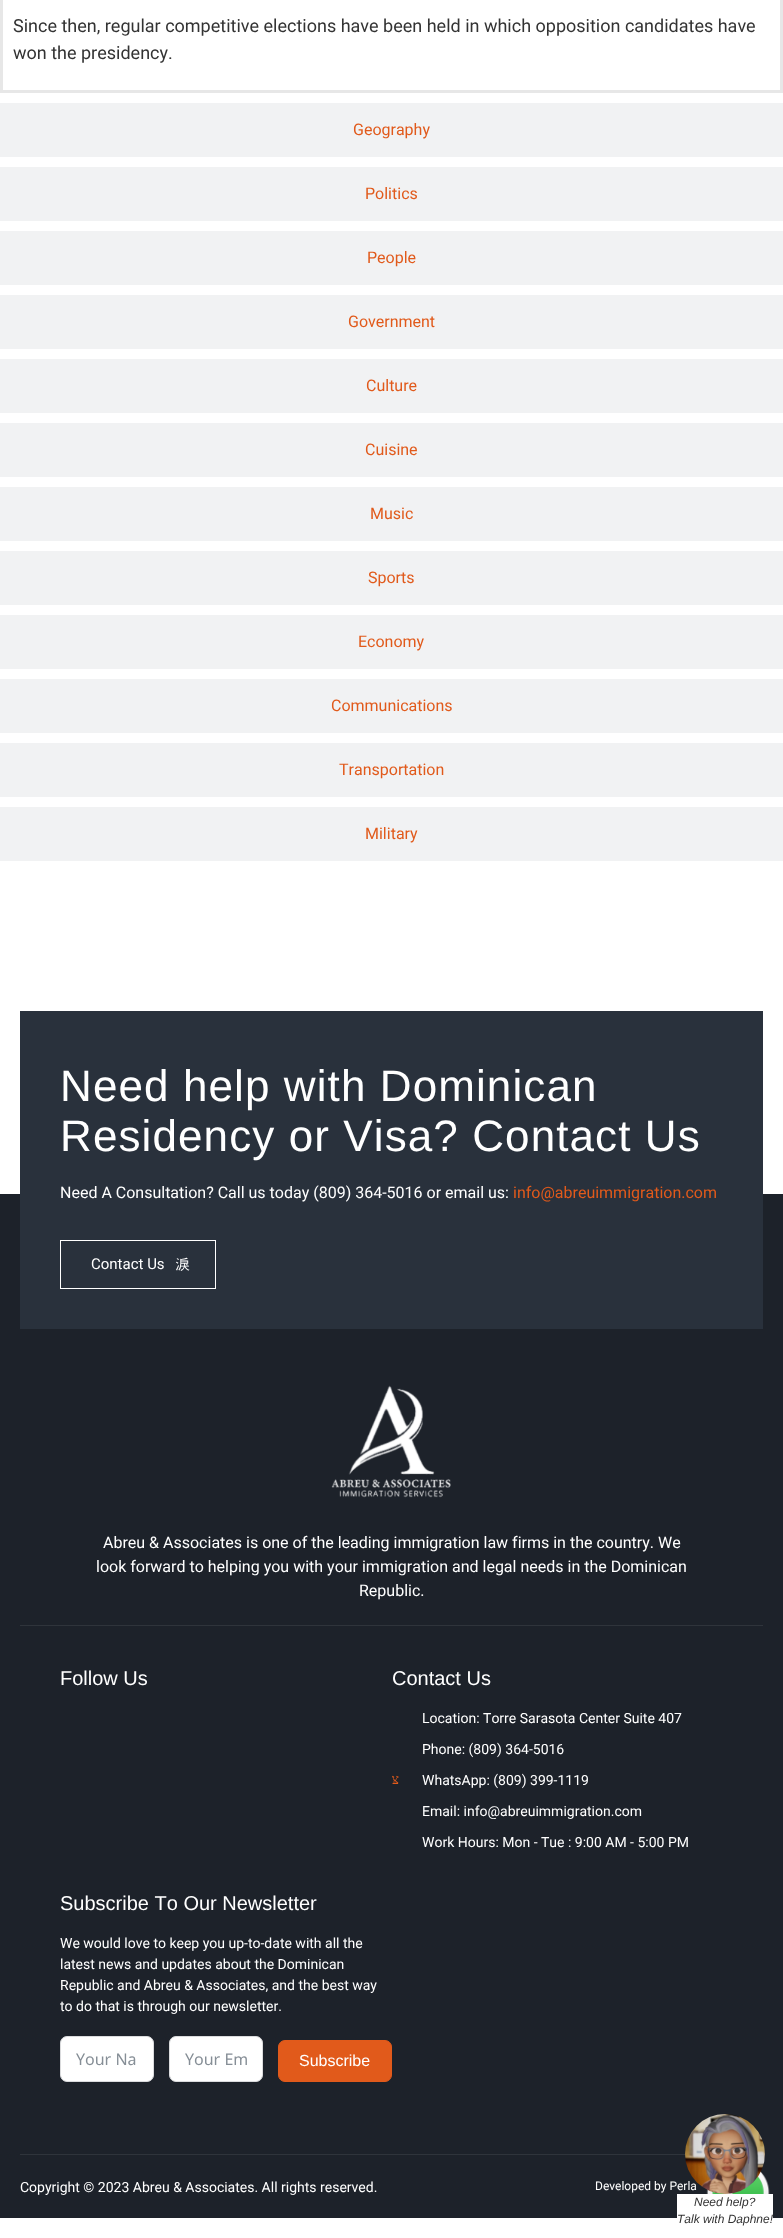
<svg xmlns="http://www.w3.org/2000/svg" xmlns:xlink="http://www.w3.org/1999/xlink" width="783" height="2238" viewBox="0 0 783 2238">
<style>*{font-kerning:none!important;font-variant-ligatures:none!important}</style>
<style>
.cls-1{font:18px Roboto;fill:#333333}
.cls-2{font:16px Roboto;fill:#e15a1b}
.cls-3{font:44px Liberation Sans;letter-spacing:1.1px;fill:#ffffff}
.cls-4{font:16px Roboto;fill:#ffffff}
.cls-5{font:15px Roboto;fill:#ffffff}
.cls-6{font:500 15px WenQuanYi Zen Hei;fill:#ffffff}
.cls-7{font:20px Liberation Sans;fill:#ffffff}
.cls-8{font:14px Roboto;fill:#ffffff}
.cls-9{font:14px Liberation Serif;direction:rtl;fill:#e15a1b}
.cls-10{font:16px Noto Sans;fill:#868e96}
.cls-11{font:16px Liberation Sans;fill:#ffffff}
.cls-12{font:12px Roboto;fill:#ffffff}
.cls-13{font:italic 12px Liberation Sans;fill:#333333}
</style>
<defs>
<clipPath id="clip1"><rect x="185" y="2048" width="62" height="22"/></clipPath>
</defs>
<rect width="100%" height="100%" fill="#ffffff"/>
<rect fill="none" stroke="#e7e7e7" stroke-width="3" x="1.5" y="-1.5" width="780" height="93"/>
<rect fill="#f1f2f3" x="0" y="103" width="783" height="54"/>
<rect fill="#f1f2f3" x="0" y="167" width="783" height="54"/>
<rect fill="#f1f2f3" x="0" y="231" width="783" height="54"/>
<rect fill="#f1f2f3" x="0" y="295" width="783" height="54"/>
<rect fill="#f1f2f3" x="0" y="359" width="783" height="54"/>
<rect fill="#f1f2f3" x="0" y="423" width="783" height="54"/>
<rect fill="#f1f2f3" x="0" y="487" width="783" height="54"/>
<rect fill="#f1f2f3" x="0" y="551" width="783" height="54"/>
<rect fill="#f1f2f3" x="0" y="615" width="783" height="54"/>
<rect fill="#f1f2f3" x="0" y="679" width="783" height="54"/>
<rect fill="#f1f2f3" x="0" y="743" width="783" height="54"/>
<rect fill="#f1f2f3" x="0" y="807" width="783" height="54"/>
<rect fill="#1d222a" x="0" y="1194" width="783" height="1024"/>
<rect fill="#29313c" x="20" y="1011" width="743" height="318"/>
<rect fill="none" stroke="#ffffff" x="60.5" y="1240.5" width="155" height="48"/>
<image xlink:href="image0.png" x="331" y="1385" width="120" height="113"/>
<rect fill="#2f343b" x="20" y="1625" width="743" height="1"/>
<rect fill="#ffffff" stroke="#dadbdd" x="60.5" y="2036.5" width="93" height="45" rx="6.5"/>
<rect fill="#ffffff" stroke="#dadbdd" x="169.5" y="2036.5" width="93" height="45" rx="6.5"/>
<rect fill="#e15a1b" stroke="#e15a1b" x="278.5" y="2040.5" width="113" height="41" rx="6.5"/>
<rect fill="#2f343b" x="20" y="2154" width="666" height="1"/>
<image xlink:href="image1.png" x="706" y="2171" width="64" height="23"/>
<rect fill="#ffffff" x="677" y="2194" width="96" height="24"/>
<text class="cls-1"><tspan x="13" y="32">Since then, regular competitive elections have been held in which opposition candidates have</tspan><tspan x="13" y="59">won the presidency.</tspan></text>
<text class="cls-2" x="353" y="135">Geography</text>
<text class="cls-2" x="365" y="199">Politics</text>
<text class="cls-2" x="367" y="263">People</text>
<text class="cls-2" x="348" y="327">Government</text>
<text class="cls-2" x="366" y="391">Culture</text>
<text class="cls-2" x="365" y="455">Cuisine</text>
<text class="cls-2" x="370" y="519">Music</text>
<text class="cls-2" x="368" y="583">Sports</text>
<text class="cls-2" x="358" y="647">Economy</text>
<text class="cls-2" x="331" y="711">Communications</text>
<text class="cls-2" x="339" y="775">Transportation</text>
<text class="cls-2" x="365" y="839">Military</text>
<text class="cls-3"><tspan x="60" y="1101">Need help with Dominican</tspan><tspan x="60" y="1151">Residency or Visa? Contact Us</tspan></text>
<text class="cls-4" x="60" y="1198">Need A Consultation? Call us today (809) 364-5016 or email us:</text>
<text class="cls-2" x="513" y="1198">info@abreuimmigration.com</text>
<text class="cls-5" x="91" y="1269">Contact Us</text>
<text class="cls-6" x="175" y="1269">淚</text>
<text class="cls-4" x="103" y="1548">Abreu &amp; Associates is one of the leading immigration law firms in the country. We</text>
<text class="cls-4" x="96" y="1572">look forward to helping you with your immigration and legal needs in the Dominican</text>
<text class="cls-4" x="359" y="1596">Republic.</text>
<text class="cls-7" x="60" y="1685">Follow Us</text>
<text class="cls-7" x="392" y="1685">Contact Us</text>
<text class="cls-8" x="422" y="1723">Location: Torre Sarasota Center Suite 407</text>
<text class="cls-8" x="422" y="1754">Phone: (809) 364-5016</text>
<text class="cls-9" x="399" y="1784">צּ</text>
<text class="cls-8" x="422" y="1785">WhatsApp: (809) 399-1119</text>
<text class="cls-8" x="422" y="1816">Email: info@abreuimmigration.com</text>
<text class="cls-8" x="422" y="1847">Work Hours: Mon - Tue : 9:00 AM - 5:00 PM</text>
<text class="cls-7" x="60" y="1910">Subscribe To Our Newsletter</text>
<text class="cls-8"><tspan x="60" y="1948">We would love to keep you up-to-date with all the</tspan><tspan x="60" y="1969">latest news and updates about the Dominican</tspan><tspan x="60" y="1990">Republic and Abreu &amp; Associates, and the best way</tspan><tspan x="60" y="2011">to do that is through our newsletter.</tspan></text>
<text class="cls-10" x="76" y="2065">Your Na</text>
<g clip-path="url(#clip1)">
<text class="cls-10" x="185" y="2065">Your Em</text>
</g>
<text class="cls-11" x="299" y="2066">Subscribe</text>
<text class="cls-8" x="20" y="2192">Copyright © 2023 Abreu &amp; Associates. All rights reserved.</text>
<text class="cls-12" x="595" y="2190">Developed by Perla</text>
<image xlink:href="image2.png" x="685" y="2114" width="80" height="80"/>
<text class="cls-13" x="694" y="2206">Need help?</text>
<text class="cls-13" x="677" y="2223">Talk with Daphne!</text>
</svg>
